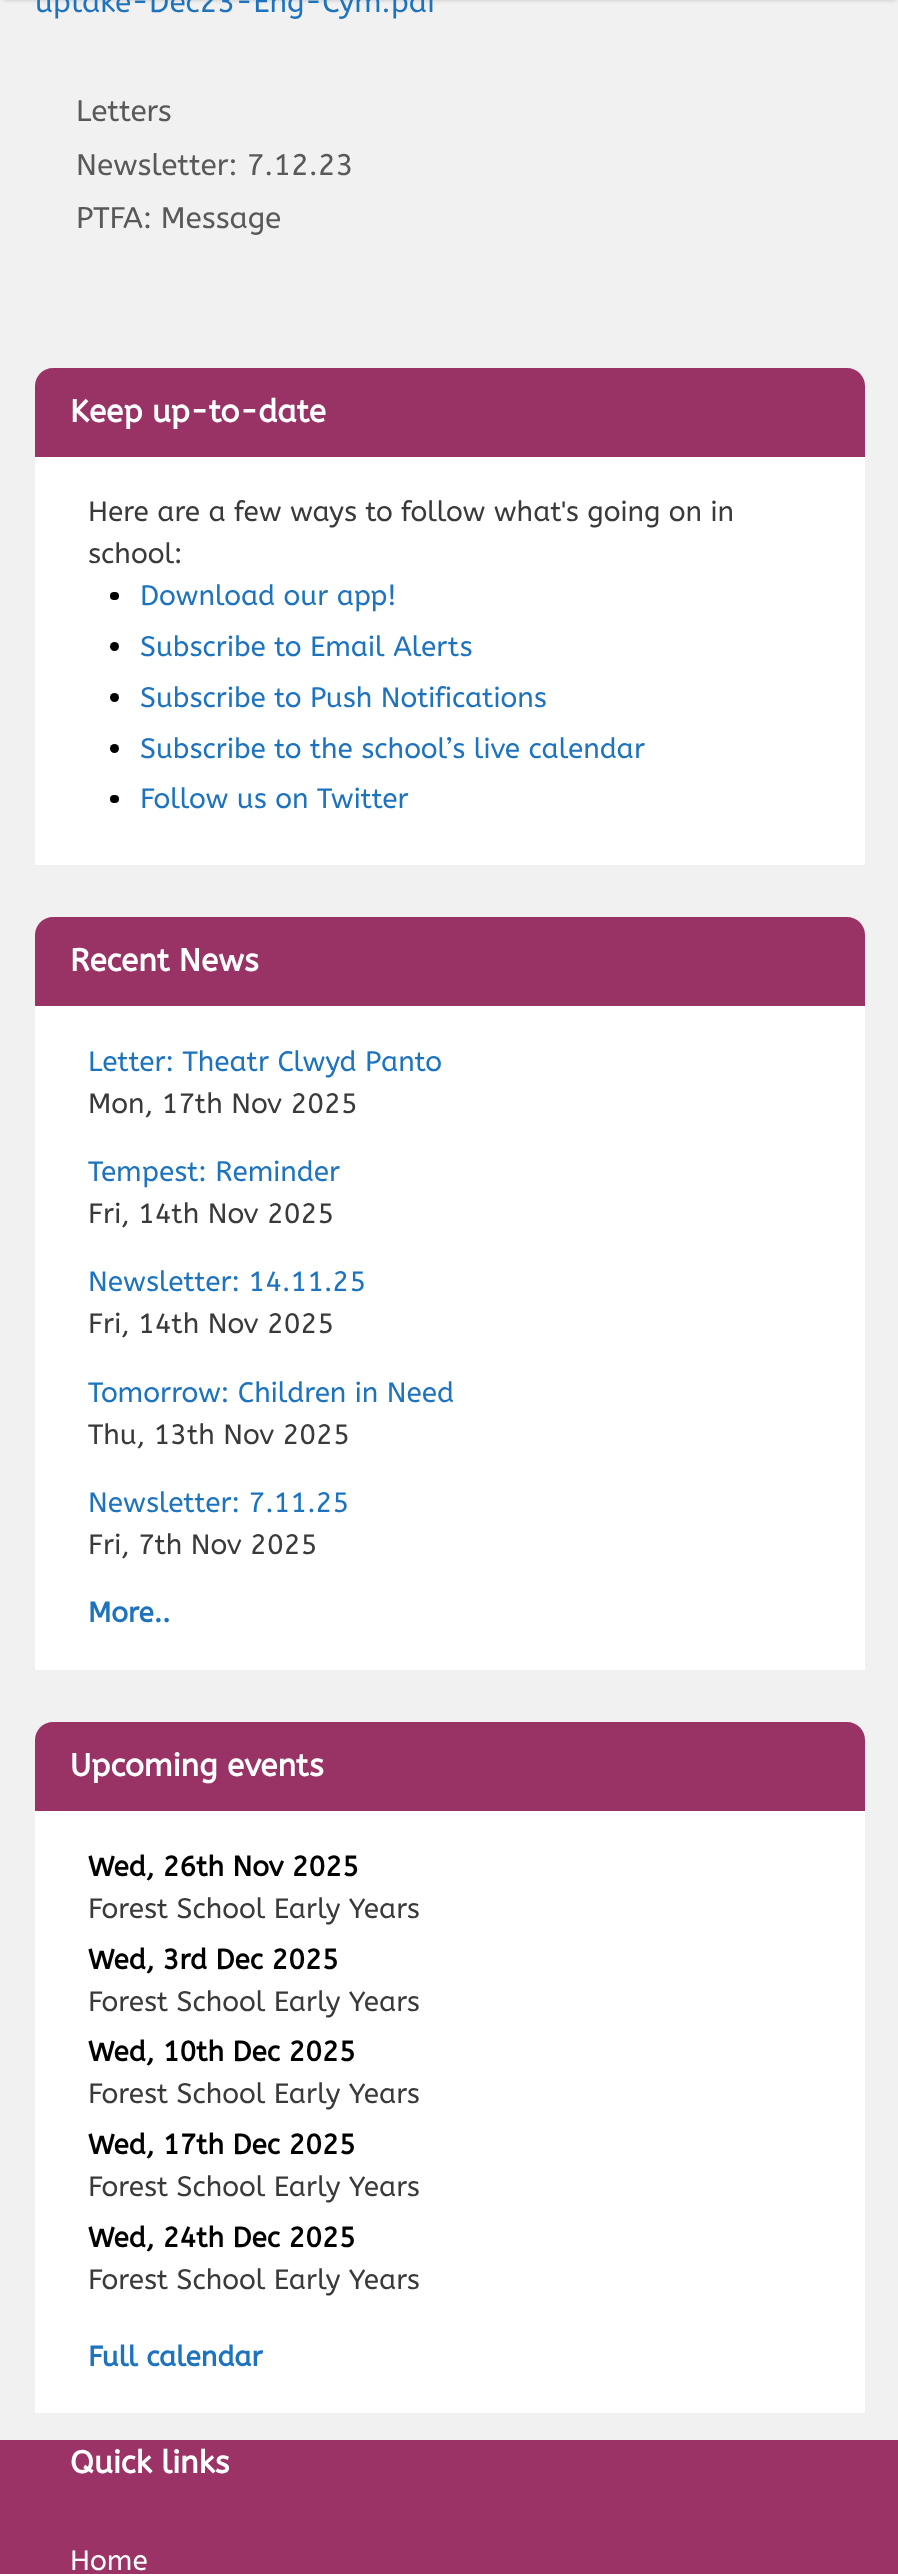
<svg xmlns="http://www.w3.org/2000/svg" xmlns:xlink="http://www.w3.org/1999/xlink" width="898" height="2574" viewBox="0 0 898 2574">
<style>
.cls-1{font:29.75px ABeeZee;fill:#1e73be}
.cls-2{font:29.75px ABeeZee;fill:#595959}
.cls-3{font:bold 31.5px ABeeZee;fill:#ffffff}
.cls-4{font:28px ABeeZee;fill:#3a3a3a}
.cls-5{font:28px ABeeZee;fill:#1e73be}
.cls-6{font:bold 28px ABeeZee;fill:#1e73be}
.cls-7{font:bold 28px ABeeZee;fill:#000000}
.cls-8{font:28px ABeeZee;fill:#ffffff}
</style>
<rect width="100%" height="100%" fill="#f1f1f1"/>
<rect fill="#000000" fill-opacity="0.2" filter="blur(2px)" x="4" y="-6" width="892" height="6"/>
<path fill="#ffffff" d="M53 368H847C857 368 865 376 865 386V865H35V386C35 376 43 368 53 368Z"/>
<path fill="#993366" d="M53 368H847C857 368 865 376 865 386V457H35V386C35 376 43 368 53 368Z"/>
<rect fill="#000000" x="110" y="592" width="9" height="8" rx="4"/>
<circle fill="#000000" cx="114.5" cy="646.5" r="4.5"/>
<circle fill="#000000" cx="114.5" cy="697.5" r="4.5"/>
<circle fill="#000000" cx="114.5" cy="748.5" r="4.5"/>
<rect fill="#000000" x="110" y="795" width="9" height="8" rx="4"/>
<path fill="#ffffff" d="M53 917H847C857 917 865 925 865 935V1670H35V935C35 925 43 917 53 917Z"/>
<path fill="#993366" d="M53 917H847C857 917 865 925 865 935V1006H35V935C35 925 43 917 53 917Z"/>
<path fill="#ffffff" d="M53 1722H847C857 1722 865 1730 865 1740V2413H35V1740C35 1730 43 1722 53 1722Z"/>
<path fill="#993366" d="M53 1722H847C857 1722 865 1730 865 1740V1811H35V1740C35 1730 43 1722 53 1722Z"/>
<rect fill="#9b3367" x="0" y="2440" width="898" height="134"/>
<text class="cls-1" x="35" y="12">uptake-Dec23-Eng-Cym.pdf</text>
<text class="cls-2"><tspan x="76" y="121">Letters</tspan><tspan x="76" y="175">Newsletter: 7.12.23</tspan><tspan x="76" y="228">PTFA: Message</tspan></text>
<text class="cls-3" x="70" y="422">Keep up-to-date</text>
<text class="cls-4"><tspan x="88" y="521">Here are a few ways to follow what's going on in</tspan><tspan x="88" y="563">school:</tspan></text>
<text class="cls-5"><tspan x="140" y="605">Download our app!</tspan><tspan x="140" y="656">Subscribe to Email Alerts</tspan><tspan x="140" y="707">Subscribe to Push Notifications</tspan><tspan x="140" y="758">Subscribe to the school’s live calendar</tspan><tspan x="140" y="808">Follow us on Twitter</tspan></text>
<text class="cls-3" x="70" y="971">Recent News</text>
<text class="cls-5" x="88" y="1071">Letter: Theatr Clwyd Panto</text>
<text class="cls-4" x="88" y="1113">Mon, 17th Nov 2025</text>
<text class="cls-5" x="88" y="1181">Tempest: Reminder</text>
<text class="cls-4" x="88" y="1223">Fri, 14th Nov 2025</text>
<text class="cls-5" x="88" y="1291">Newsletter: 14.11.25</text>
<text class="cls-4" x="88" y="1333">Fri, 14th Nov 2025</text>
<text class="cls-5" x="88" y="1402">Tomorrow: Children in Need</text>
<text class="cls-4" x="88" y="1444">Thu, 13th Nov 2025</text>
<text class="cls-5" x="88" y="1512">Newsletter: 7.11.25</text>
<text class="cls-4" x="88" y="1554">Fri, 7th Nov 2025</text>
<text class="cls-6" x="88" y="1622">More..</text>
<text class="cls-3" x="70" y="1776">Upcoming events</text>
<text class="cls-7" x="88" y="1876">Wed, 26th Nov 2025</text>
<text class="cls-4" x="88" y="1918">Forest School Early Years</text>
<text class="cls-7" x="88" y="1969">Wed, 3rd Dec 2025</text>
<text class="cls-4" x="88" y="2011">Forest School Early Years</text>
<text class="cls-7" x="88" y="2061">Wed, 10th Dec 2025</text>
<text class="cls-4" x="88" y="2103">Forest School Early Years</text>
<text class="cls-7" x="88" y="2154">Wed, 17th Dec 2025</text>
<text class="cls-4" x="88" y="2196">Forest School Early Years</text>
<text class="cls-7" x="88" y="2247">Wed, 24th Dec 2025</text>
<text class="cls-4" x="88" y="2289">Forest School Early Years</text>
<text class="cls-6" x="88" y="2366">Full calendar</text>
<text class="cls-3" x="70" y="2473">Quick links</text>
<text class="cls-8" x="70" y="2570">Home</text>
</svg>
